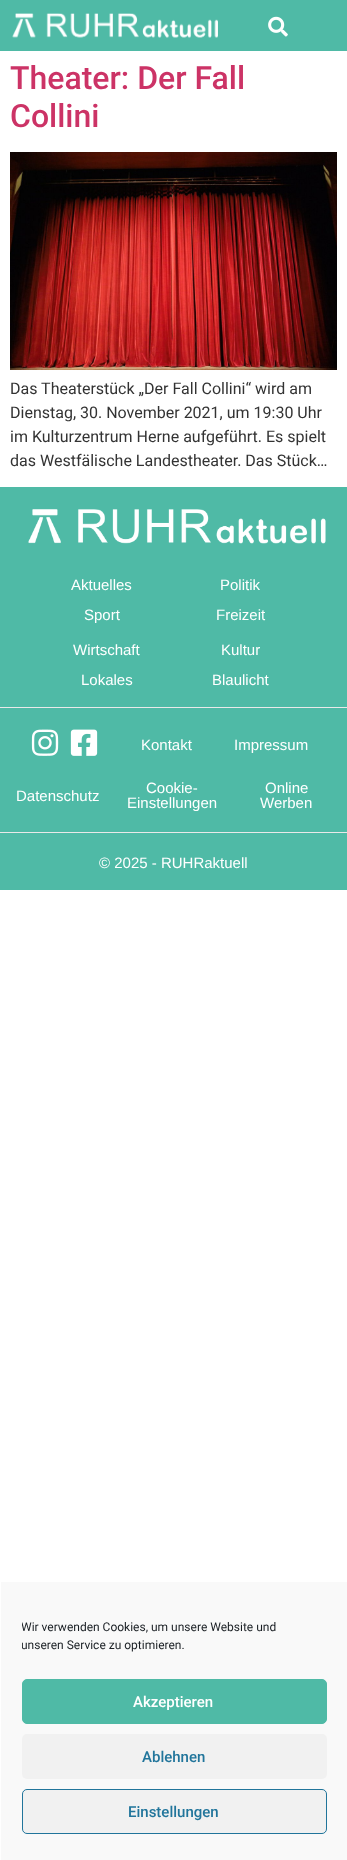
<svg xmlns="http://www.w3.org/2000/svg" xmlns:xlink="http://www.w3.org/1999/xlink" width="347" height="1860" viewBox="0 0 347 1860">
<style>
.cls-1{font:500 32px Roboto;fill:#cc3366}
.cls-2{font:16px Roboto;fill:#333333}
.cls-3{font:15px Liberation Sans;fill:#ffffff}
.cls-4{font:12px Roboto;fill:#191e23}
.cls-5{font:500 15px Roboto;fill:#ffffff}
.cls-6{font:500 15px Roboto;fill:#21759b}
</style>
<defs>
<clipPath id="clip1"><rect x="22" y="1618" width="305" height="41"/></clipPath>
</defs>
<rect width="100%" height="100%" fill="#ffffff"/>
<rect fill="#4fbaa6" x="0" y="0" width="347" height="51"/>
<image xlink:href="image0.png" x="12" y="13" width="206" height="25"/>
<image xlink:href="image1.png" x="268" y="16" width="20" height="21"/>
<image xlink:href="image2.png" x="10" y="152" width="327" height="218"/>
<rect fill="#4fbaa6" x="0" y="487" width="347" height="403"/>
<image xlink:href="image3.png" x="28" y="509" width="298" height="35"/>
<rect fill="#e9e9e9" x="0" y="707" width="347" height="1"/>
<image xlink:href="image4.png" x="31" y="729" width="28" height="27"/>
<image xlink:href="image5.png" x="70" y="729" width="28" height="27"/>
<rect fill="#e9e9e9" x="0" y="832" width="347" height="1"/>
<rect fill="#f9f9f9" x="1" y="1582" width="346" height="278"/>
<rect fill="#4fbaa6" stroke="#4fbaa6" x="22.5" y="1679.5" width="304" height="44" rx="4.5"/>
<rect fill="#f1f1f1" x="22" y="1734" width="305" height="45" rx="5"/>
<rect fill="#f1f1f1" stroke="#21759b" x="22.5" y="1789.5" width="304" height="44" rx="4.5"/>
<text class="cls-1"><tspan x="10" y="89">Theater: Der Fall</tspan><tspan x="10" y="127">Collini</tspan></text>
<text class="cls-2"><tspan x="10" y="394">Das Theaterstück „Der Fall Collini“ wird am</tspan><tspan x="10" y="418">Dienstag, 30. November 2021, um 19:30 Uhr</tspan><tspan x="10" y="442">im Kulturzentrum Herne aufgeführt. Es spielt</tspan><tspan x="10" y="466">das Westfälische Landestheater. Das Stück…</tspan></text>
<text class="cls-3" x="71" y="590">Aktuelles</text>
<text class="cls-3" x="84" y="620">Sport</text>
<text class="cls-3" x="220" y="590">Politik</text>
<text class="cls-3" x="216" y="620">Freizeit</text>
<text class="cls-3" x="73" y="655">Wirtschaft</text>
<text class="cls-3" x="81" y="685">Lokales</text>
<text class="cls-3" x="221" y="655">Kultur</text>
<text class="cls-3" x="212" y="685">Blaulicht</text>
<text class="cls-3" x="141" y="750">Kontakt</text>
<text class="cls-3" x="234" y="750">Impressum</text>
<text class="cls-3" x="16" y="801">Datenschutz</text>
<text class="cls-3" x="146" y="793">Cookie-</text>
<text class="cls-3" x="127" y="808">Einstellungen</text>
<text class="cls-3" x="265" y="793">Online</text>
<text class="cls-3" x="260" y="808">Werben</text>
<text class="cls-3" x="99" y="868">© 2025 - RUHRaktuell</text>
<g clip-path="url(#clip1)">
<text class="cls-4"><tspan x="21" y="1631">Wir verwenden Cookies, um unsere Website und</tspan><tspan x="21" y="1649">unseren Service zu optimieren.</tspan></text>
</g>
<text class="cls-5" x="133" y="1707">Akzeptieren</text>
<text class="cls-6" x="142" y="1762">Ablehnen</text>
<text class="cls-6" x="128" y="1817">Einstellungen</text>
</svg>
